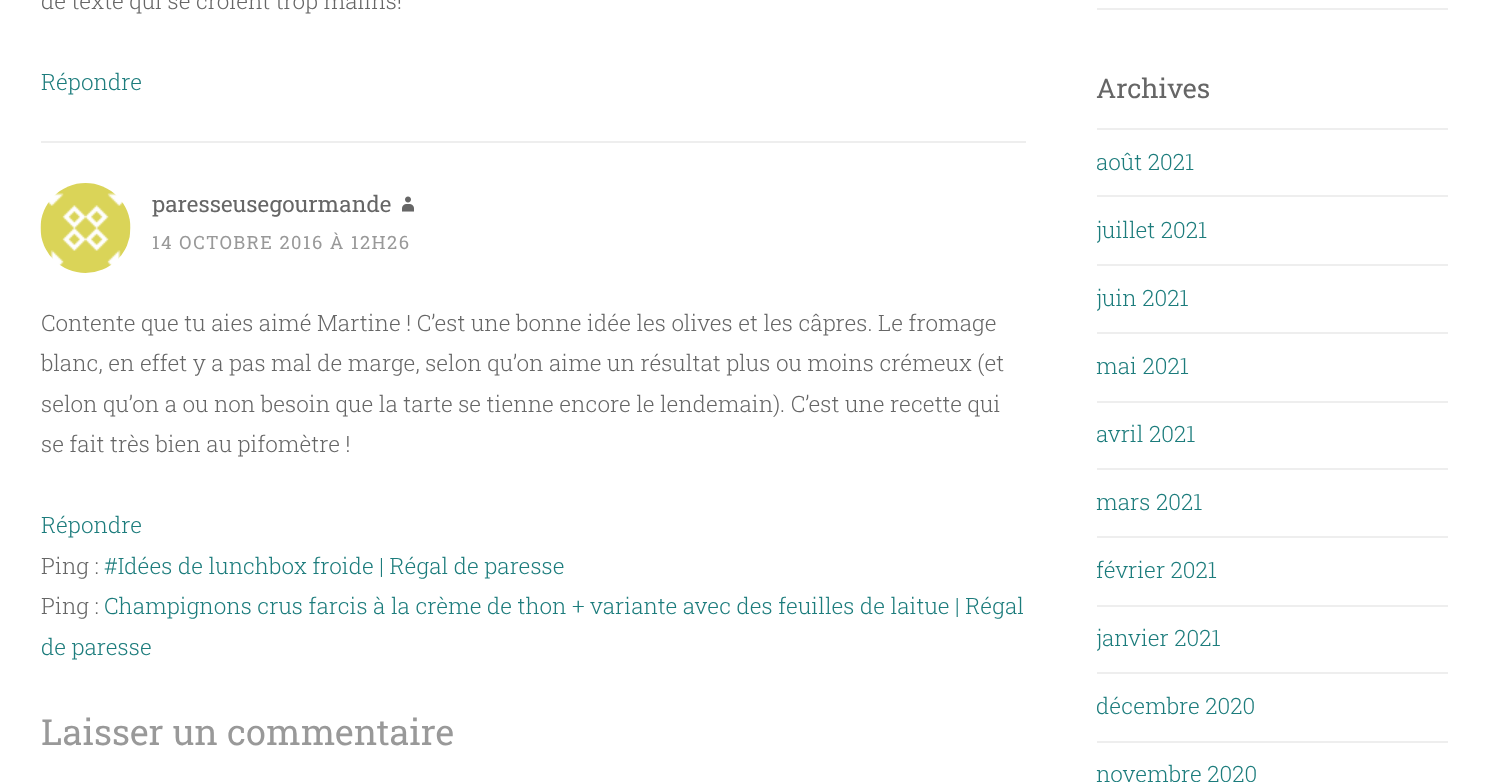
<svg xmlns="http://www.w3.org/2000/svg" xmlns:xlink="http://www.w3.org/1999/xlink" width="1488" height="782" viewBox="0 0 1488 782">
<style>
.cls-1{font:300 22.5px Roboto Slab;fill:#666666}
.cls-2{font:300 22.5px Roboto Slab;fill:#1c7c7c}
.cls-3{font:22.5px Roboto Slab;fill:#666666}
.cls-4{font:18.25px Roboto Slab;letter-spacing:1.5px;fill:#999999}
.cls-5{font:36px Roboto Slab;fill:#999999}
.cls-6{font:27px Roboto Slab;fill:#666666}
</style>
<defs>
<clipPath id="clip1"><rect x="1097" y="50" width="351" height="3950"/></clipPath>
</defs>
<rect width="100%" height="100%" fill="#ffffff"/>
<rect fill="#eeeeee" x="41" y="141" width="985" height="2"/>
<image xlink:href="image0.png" x="40" y="183" width="91" height="90"/>
<image xlink:href="image1.png" x="402" y="196" width="12" height="16"/>
<rect fill="#eeeeee" x="1097" y="8" width="351" height="2"/>
<rect fill="#eeeeee" x="1097" y="128" width="351" height="2"/>
<rect fill="#eeeeee" x="1097" y="195" width="351" height="2"/>
<rect fill="#eeeeee" x="1097" y="264" width="351" height="2"/>
<rect fill="#eeeeee" x="1097" y="332" width="351" height="2"/>
<rect fill="#eeeeee" x="1097" y="401" width="351" height="2"/>
<rect fill="#eeeeee" x="1097" y="468" width="351" height="2"/>
<rect fill="#eeeeee" x="1097" y="536" width="351" height="2"/>
<rect fill="#eeeeee" x="1097" y="605" width="351" height="2"/>
<rect fill="#eeeeee" x="1097" y="672" width="351" height="2"/>
<rect fill="#eeeeee" x="1097" y="741" width="351" height="2"/>
<text class="cls-1" x="41" y="9">de texte qui se croient trop malins!</text>
<text class="cls-2" x="41" y="90">Répondre</text>
<text class="cls-3" x="152" y="212">paresseusegourmande</text>
<text class="cls-4" x="152" y="249">14 OCTOBRE 2016 À 12H26</text>
<text class="cls-1"><tspan x="41" y="331">Contente que tu aies aimé Martine ! C’est une bonne idée les olives et les câpres. Le fromage</tspan><tspan x="41" y="371">blanc, en effet y a pas mal de marge, selon qu’on aime un résultat plus ou moins crémeux (et</tspan><tspan x="41" y="412">selon qu’on a ou non besoin que la tarte se tienne encore le lendemain). C’est une recette qui</tspan><tspan x="41" y="452">se fait très bien au pifomètre !</tspan></text>
<text class="cls-2" x="41" y="533">Répondre</text>
<text class="cls-1" x="41" y="574">Ping :</text>
<text class="cls-2" x="104" y="574">#Idées de lunchbox froide | Régal de paresse</text>
<text class="cls-1" x="41" y="614">Ping :</text>
<text class="cls-2" x="104" y="614">Champignons crus farcis à la crème de thon + variante avec des feuilles de laitue | Régal</text>
<text class="cls-2" x="41" y="655">de paresse</text>
<text class="cls-5" x="41" y="745">Laisser un commentaire</text>
<text class="cls-6" x="1096" y="98">Archives</text>
<text class="cls-2" x="1096" y="170">août 2021</text>
<g clip-path="url(#clip1)">
<text class="cls-2" x="1096" y="238">juillet 2021</text>
<text class="cls-2" x="1096" y="306">juin 2021</text>
</g>
<text class="cls-2" x="1096" y="374">mai 2021</text>
<text class="cls-2" x="1096" y="442">avril 2021</text>
<text class="cls-2" x="1096" y="510">mars 2021</text>
<g clip-path="url(#clip1)">
<text class="cls-2" x="1096" y="578">février 2021</text>
<text class="cls-2" x="1096" y="646">janvier 2021</text>
<text class="cls-2" x="1096" y="714">décembre 2020</text>
</g>
<text class="cls-2" x="1096" y="782">novembre 2020</text>
</svg>
